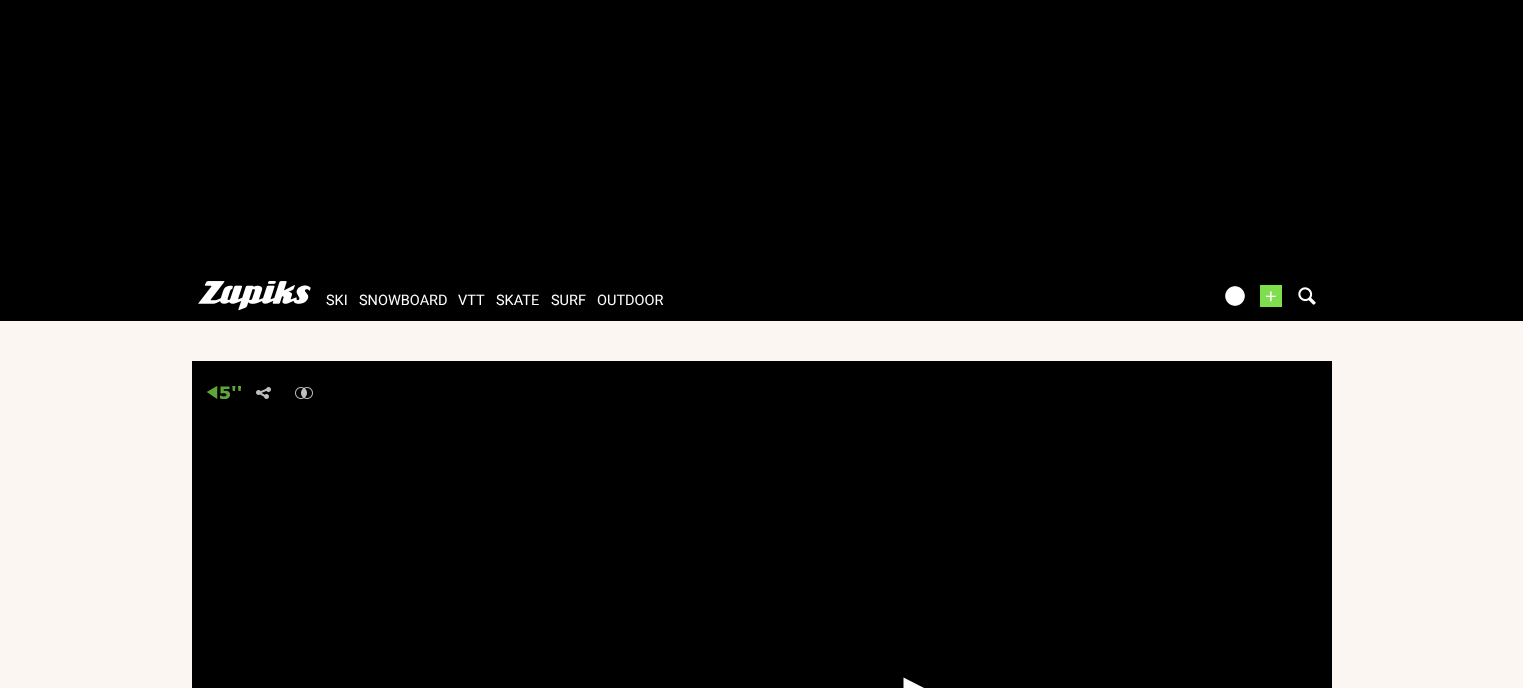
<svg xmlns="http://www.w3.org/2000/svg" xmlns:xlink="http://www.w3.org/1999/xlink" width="1523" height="688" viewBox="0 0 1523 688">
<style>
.cls-1{font:14.5px Roboto;fill:#ffffff}
.cls-2{font:20px Liberation Sans;fill:#ffffff}
</style>
<rect width="100%" height="100%" fill="#fbf6f2"/>
<rect fill="#000000" x="0" y="0" width="1523" height="321"/>
<image xlink:href="image0.png" x="198" y="281" width="113" height="30"/>
<image xlink:href="image1.png" x="1225" y="286" width="20" height="20"/>
<rect fill="#7ede4e" x="1260" y="285" width="22" height="22"/>
<image xlink:href="image2.png" x="1298" y="287" width="18" height="18"/>
<rect fill="#000000" x="192" y="361" width="1140" height="327"/>
<image xlink:href="image3.png" x="207" y="386" width="34" height="13"/>
<image xlink:href="image4.png" x="256" y="387" width="15" height="12"/>
<image xlink:href="image5.png" x="295" y="387" width="18" height="12"/>
<path fill="#ffffff" d="M928 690L903.5 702V677.5Z"/>
<text class="cls-1" x="326" y="305">SKI</text>
<text class="cls-1" x="359" y="305">SNOWBOARD</text>
<text class="cls-1" x="458" y="305">VTT</text>
<text class="cls-1" x="496" y="305">SKATE</text>
<text class="cls-1" x="551" y="305">SURF</text>
<text class="cls-1" x="597" y="305">OUTDOOR</text>
<text class="cls-2" x="1265" y="303">+</text>
</svg>
